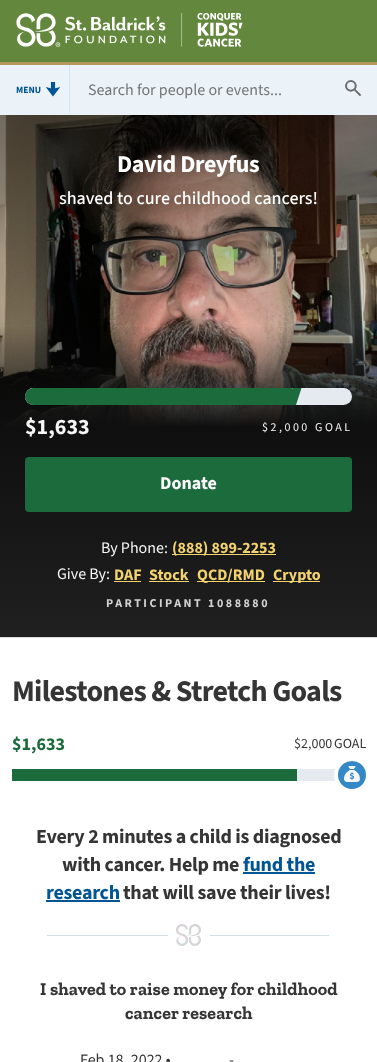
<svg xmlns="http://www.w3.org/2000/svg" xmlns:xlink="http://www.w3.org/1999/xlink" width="377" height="1062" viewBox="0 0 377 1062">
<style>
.cls-1{font:bold 9.5px 'Source Sans 3';fill:#005595}
.cls-2{font:16px 'Source Sans 3';fill:#757575}
.cls-3{font:bold 24px 'Source Sans 3';letter-spacing:-0.4px;fill:#ffffff}
.cls-4{font:500 18px 'Source Sans 3';fill:#ffffff}
.cls-5{font:bold 22px 'Source Sans 3';fill:#f5f5f5}
.cls-6{font:12px 'Source Sans 3';letter-spacing:2.5px;fill:#f5f5f5}
.cls-7{font:bold 18px 'Source Sans 3';fill:#ffffff}
.cls-8{font:16px 'Source Sans 3';fill:#f5f5f5}
.cls-9{font:bold 16px 'Source Sans 3';fill:#f3d36e}
.cls-10{font:bold 12px 'Source Sans 3';letter-spacing:2.5px;fill:#d2d2d2}
.cls-11{font:bold 30px 'Source Sans 3';letter-spacing:-0.75px;fill:#353535}
.cls-12{font:bold 18px 'Source Sans 3';fill:#1c6b3d}
.cls-13{font:14px 'Source Sans 3';fill:#353535}
.cls-14{font:bold 20px 'Source Sans 3';letter-spacing:-0.3px;fill:#353535}
.cls-15{font:bold 20px 'Source Sans 3';letter-spacing:-0.3px;fill:#005595}
.cls-16{font:bold 18px Zilla Slab;letter-spacing:0.1px;fill:#353535}
.cls-17{font:16px 'Source Sans 3';fill:#353535}
</style>
<defs>
<linearGradient id="g1" gradientUnits="userSpaceOnUse" x1="188" y1="99" x2="189" y2="637"><stop offset="0.01" stop-color="#0a0a0a" stop-opacity="0"/><stop offset="0.42" stop-color="#0a0a0a" stop-opacity="0"/><stop offset="0.61" stop-color="#0a0a0a"/><stop offset="1" stop-color="#0a0a0a"/></linearGradient>
<linearGradient id="g2" gradientUnits="userSpaceOnUse" x1="188" y1="99" x2="189" y2="906"><stop offset="0" stop-color="#000000" stop-opacity="0.5"/><stop offset="0.33" stop-color="#000000" stop-opacity="0"/><stop offset="0.33" stop-color="#353535" stop-opacity="0"/><stop offset="1" stop-color="#353535"/></linearGradient>
</defs>
<rect width="100%" height="100%" fill="#ffffff"/>
<rect fill="#63883d" x="0" y="0" width="377" height="62"/>
<rect fill="#b4975a" x="0" y="62" width="377" height="3"/>
<image xlink:href="image0.png" x="16" y="13" width="227" height="34"/>
<rect fill="#ebf3f9" x="0" y="65" width="377" height="50"/>
<rect fill="#cde5ff" x="69" y="65" width="1" height="48"/>
<image xlink:href="image1.png" x="45" y="82" width="16" height="15"/>
<image xlink:href="image2.png" x="345" y="80" width="16" height="16"/>
<rect fill="#dbdbdb" x="0" y="637" width="377" height="1"/>
<image xlink:href="image3.png" x="0" y="115" width="377" height="312"/>
<rect fill="url(#g1)" x="0" y="327" width="377" height="310"/>
<rect fill="url(#g2)" x="0" y="115" width="377" height="522"/>
<rect fill="#e4eaf0" x="25" y="388" width="327" height="17" rx="8.5"/>
<path fill="#1c6b3d" d="M33.5 388H292V405H33.5C29 405 25 401 25 396.5C25 392 29 388 33.5 388Z"/>
<path fill="#1c6b3d" d="M287 405L292.5 388H301.5L296 405Z"/>
<rect fill="#1c6b3d" stroke="#1c6b3d" stroke-width="2" x="26" y="458" width="325" height="53" rx="3"/>
<rect fill="#f3d36e" x="172" y="554" width="104" height="1"/>
<rect fill="#f3d36e" x="114" y="581" width="27" height="1"/>
<rect fill="#f3d36e" x="149" y="581" width="40" height="1"/>
<rect fill="#f3d36e" x="197" y="581" width="68" height="1"/>
<rect fill="#f3d36e" x="273" y="581" width="47" height="1"/>
<rect fill="#e4eaf0" x="297" y="769" width="43" height="12"/>
<circle fill="#3588c8" stroke="#ffffff" stroke-width="4" cx="352" cy="775" r="16"/>
<image xlink:href="image4.png" x="344" y="766" width="16" height="16"/>
<rect fill="#1c6b3d" x="12" y="769" width="285" height="12"/>
<rect fill="#005595" x="243" y="872" width="72" height="2"/>
<rect fill="#005595" x="46" y="900" width="74" height="2"/>
<image xlink:href="image5.png" x="47" y="924" width="282" height="22"/>
<text class="cls-1" x="16" y="93">MENU</text>
<text class="cls-2" x="88" y="95">Search for people or events...</text>
<text class="cls-3" x="117" y="172">David Dreyfus</text>
<text class="cls-4" x="59" y="204">shaved to cure childhood cancers!</text>
<text class="cls-5" x="25" y="434">$1,633</text>
<text class="cls-6" x="262" y="431">$2,000</text>
<text class="cls-6" x="315" y="431">GOAL</text>
<text class="cls-7" x="160" y="489">Donate</text>
<text class="cls-8" x="101" y="553">By Phone:</text>
<text class="cls-9" x="172" y="553">(888) 899-2253</text>
<text class="cls-8" x="57" y="579">Give By:</text>
<text class="cls-9" x="114" y="580">DAF</text>
<text class="cls-9" x="149" y="580">Stock</text>
<text class="cls-9" x="197" y="580">QCD/RMD</text>
<text class="cls-9" x="273" y="580">Crypto</text>
<text class="cls-10" x="106" y="607">PARTICIPANT 1088880</text>
<text class="cls-11" x="12" y="701">Milestones &amp; Stretch Goals</text>
<text class="cls-12" x="12" y="750">$1,633</text>
<text class="cls-13" x="294" y="748">$</text>
<text class="cls-13" x="301" y="748">2,000</text>
<text class="cls-13" x="334" y="748">GOAL</text>
<text class="cls-14" x="36" y="843">Every 2 minutes a child is diagnosed</text>
<text class="cls-14" x="62" y="871">with cancer. Help me</text>
<text class="cls-15" x="243" y="871">fund the</text>
<text class="cls-15" x="46" y="899">research</text>
<text class="cls-14" x="123" y="899">that will save their lives!</text>
<text class="cls-16" x="40" y="995">I shaved to raise money for childhood</text>
<text class="cls-16" x="125" y="1019">cancer research</text>
<text class="cls-17" x="80" y="1065">Feb 18, 2022 •</text>
<text class="cls-17" x="229" y="1065">-</text>
</svg>
